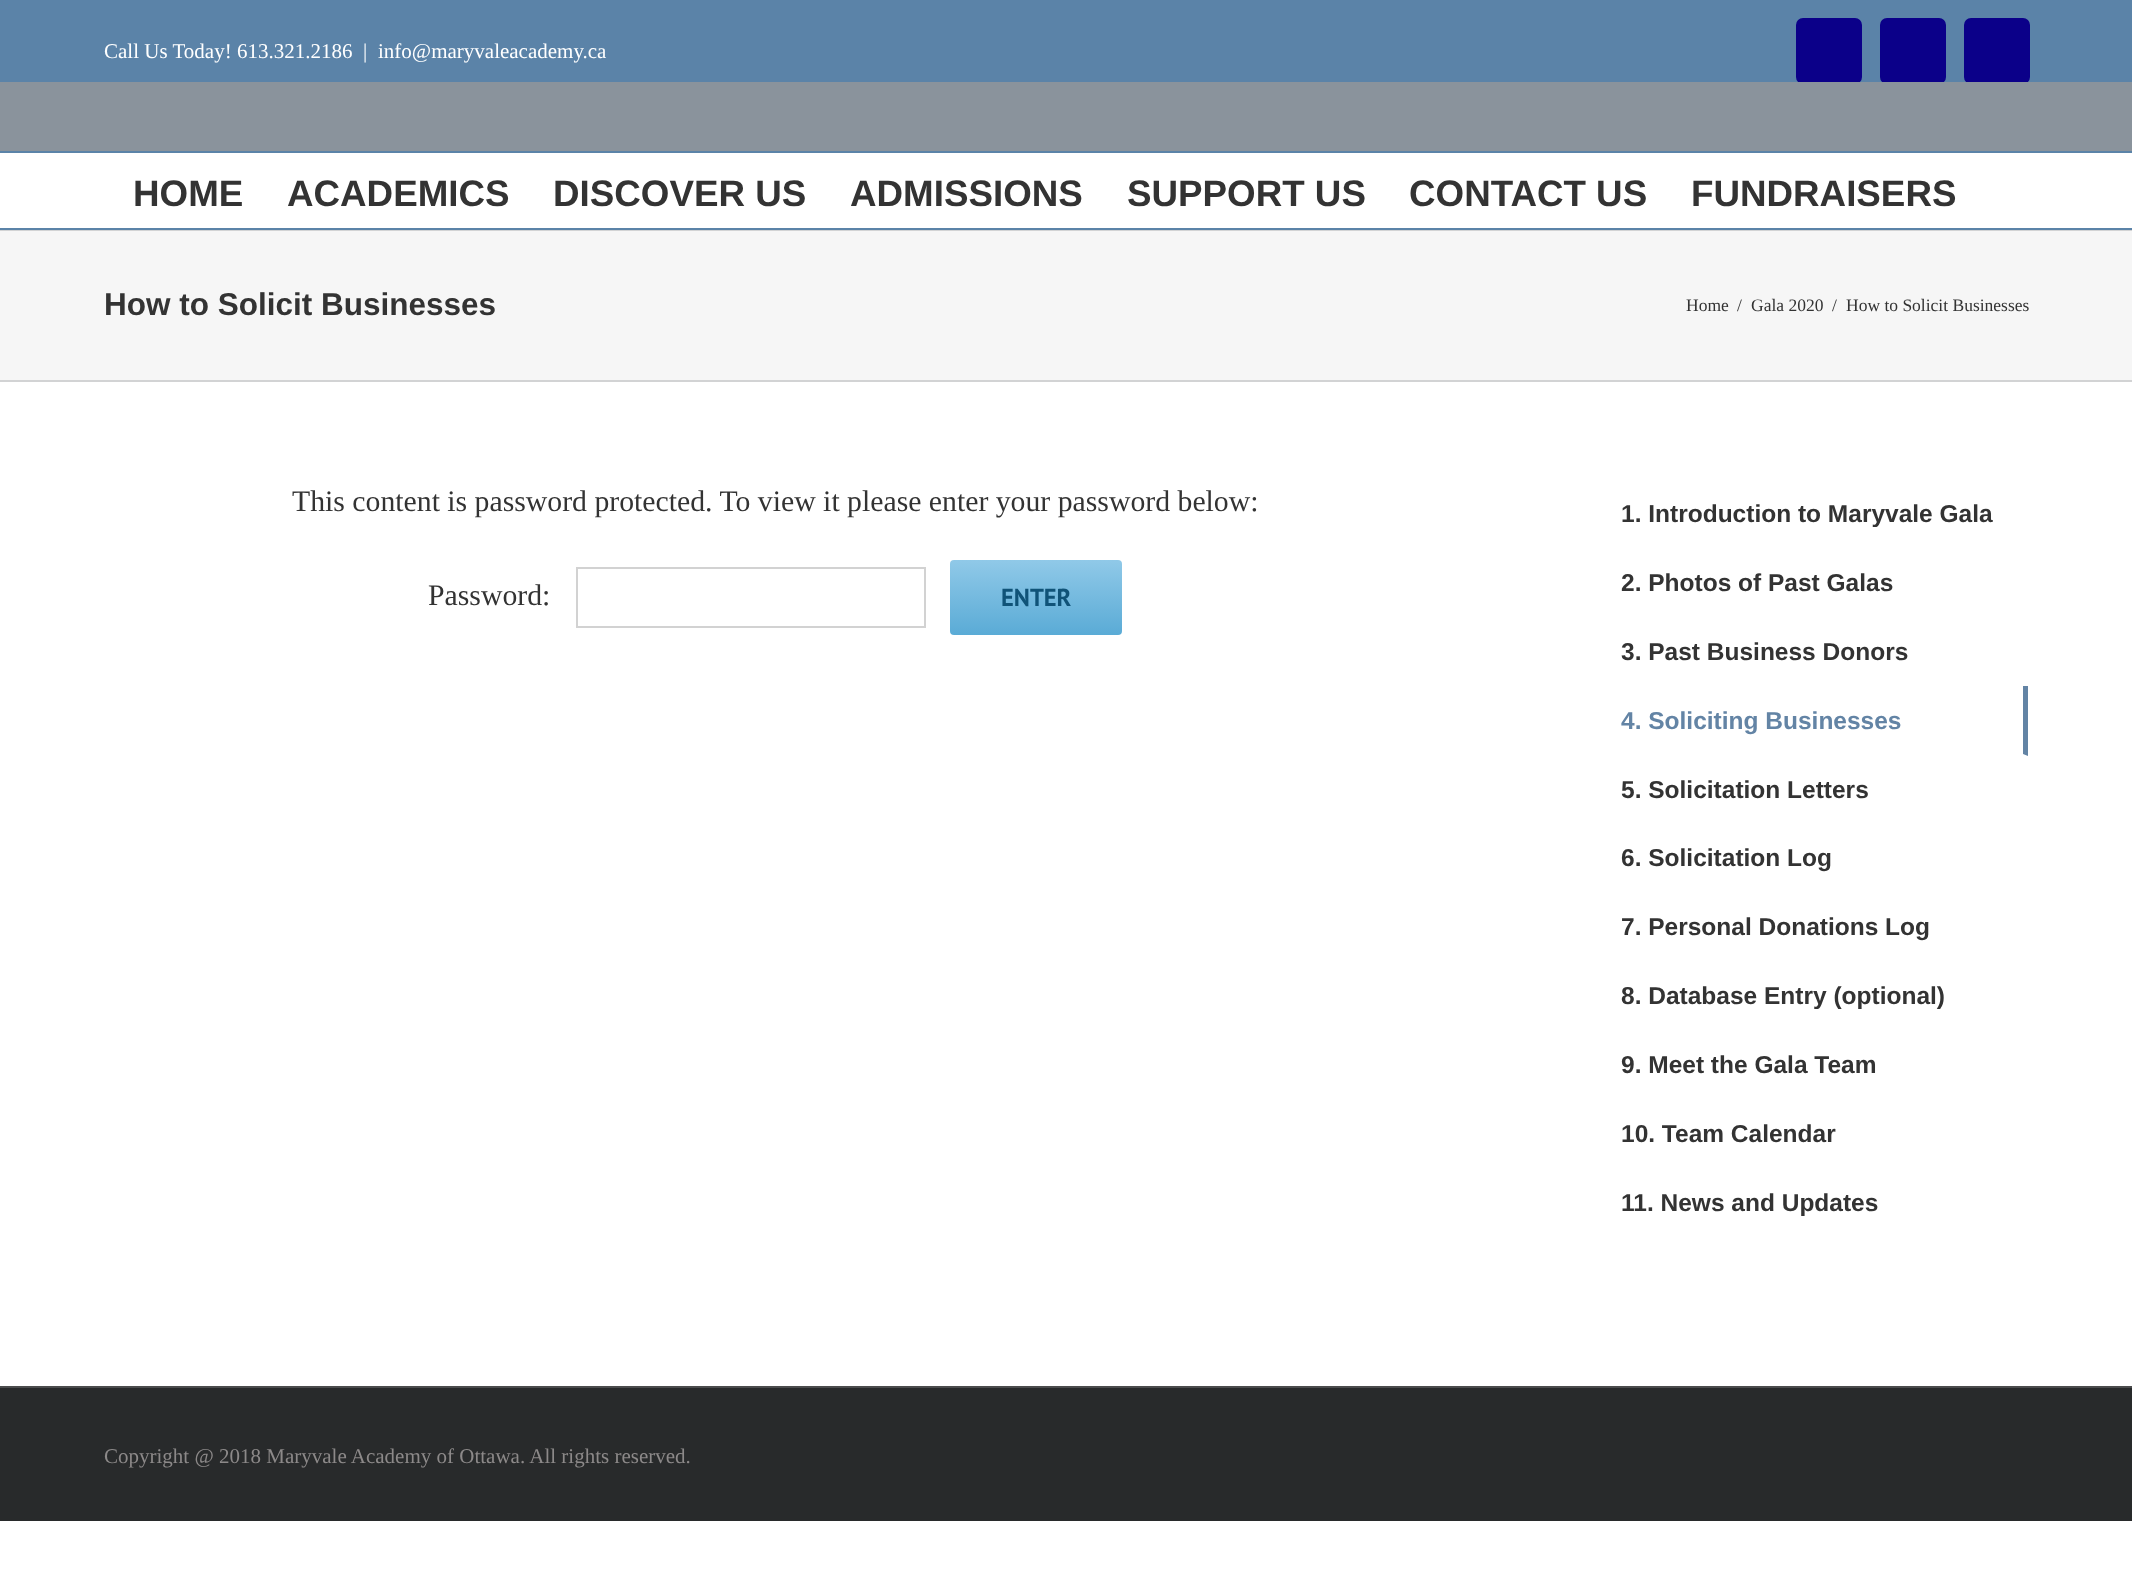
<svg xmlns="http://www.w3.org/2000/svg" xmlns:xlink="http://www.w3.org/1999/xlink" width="2132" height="1584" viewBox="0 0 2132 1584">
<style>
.cls-1{font:21px Liberation Serif;fill:#ffffff}
.cls-2{font:bold 36.75px Liberation Sans;fill:#333333}
.cls-3{font:bold 31.5px Liberation Sans;fill:#333333}
.cls-4{font:17.5px Liberation Serif;fill:#333333}
.cls-5{font:29.75px Liberation Serif;fill:#333333}
.cls-6{font:bold 24.5px PT Sans;fill:#105378}
.cls-7{font:bold 24.5px Liberation Sans;fill:#333333}
.cls-8{font:bold 24.5px Liberation Sans;fill:#6384a5}
.cls-9{font:21px Liberation Serif;fill:#8c8989}
</style>
<defs>
<linearGradient id="g1" gradientUnits="userSpaceOnUse" x1="1036" y1="635" x2="1036" y2="560"><stop offset="0" stop-color="#5aabd6"/><stop offset="1" stop-color="#90c9e8"/></linearGradient>
</defs>
<rect width="100%" height="100%" fill="#ffffff"/>
<rect fill="#5b83a8" x="0" y="0" width="2132" height="82"/>
<rect fill="#0b0089" stroke="#0b0089" stroke-width="2" x="1797" y="19" width="64" height="64" rx="6"/>
<rect fill="#0b0089" stroke="#0b0089" stroke-width="2" x="1881" y="19" width="64" height="64" rx="6"/>
<rect fill="#0b0089" stroke="#0b0089" stroke-width="2" x="1965" y="19" width="64" height="64" rx="6"/>
<rect fill="#5b83a8" x="0" y="151" width="2132" height="2"/>
<rect fill="#8a939c" x="0" y="82" width="2132" height="69"/>
<rect fill="#5b83a8" x="0" y="228" width="2132" height="2"/>
<rect fill="#f6f6f6" x="0" y="231" width="2132" height="149"/>
<rect fill="#d2d3d4" x="0" y="230" width="2132" height="1"/>
<rect fill="#d2d3d4" x="0" y="380" width="2132" height="2"/>
<rect fill="none" stroke="#d2d2d2" stroke-width="2" x="577" y="568" width="348" height="59"/>
<rect fill="url(#g1)" x="950" y="560" width="172" height="75" rx="4"/>
<path fill="#6384a5" d="M2028 686V756L2023 754V686Z"/>
<rect fill="#282a2b" x="0" y="1388" width="2132" height="133"/>
<rect fill="#4b4c4d" x="0" y="1386" width="2132" height="2"/>
<text class="cls-1" x="104" y="58">Call Us Today! 613.321.2186</text>
<text class="cls-1" x="363" y="58">|</text>
<text class="cls-1" x="378" y="58">info@maryvaleacademy.ca</text>
<text class="cls-2" x="133" y="206">HOME</text>
<text class="cls-2" x="287" y="206">ACADEMICS</text>
<text class="cls-2" x="553" y="206">DISCOVER US</text>
<text class="cls-2" x="850" y="206">ADMISSIONS</text>
<text class="cls-2" x="1127" y="206">SUPPORT US</text>
<text class="cls-2" x="1409" y="206">CONTACT US</text>
<text class="cls-2" x="1691" y="206">FUNDRAISERS</text>
<text class="cls-3" x="104" y="315">How to Solicit Businesses</text>
<text class="cls-4" x="1686" y="311">Home</text>
<text class="cls-4" x="1737" y="311">/</text>
<text class="cls-4" x="1751" y="311">Gala 2020</text>
<text class="cls-4" x="1832" y="311">/</text>
<text class="cls-4" x="1846" y="311">How to Solicit Businesses</text>
<text class="cls-5" x="292" y="511">This content is password protected. To view it please enter your password below:</text>
<text class="cls-5" x="428" y="605">Password:</text>
<text class="cls-6" x="1001" y="606">ENTER</text>
<text class="cls-7" x="1621" y="522">1. Introduction to Maryvale Gala</text>
<text class="cls-7" x="1621" y="591">2. Photos of Past Galas</text>
<text class="cls-7" x="1621" y="660">3. Past Business Donors</text>
<text class="cls-8" x="1621" y="729">4. Soliciting Businesses</text>
<text class="cls-7" x="1621" y="798">5. Solicitation Letters</text>
<text class="cls-7" x="1621" y="866">6. Solicitation Log</text>
<text class="cls-7" x="1621" y="935">7. Personal Donations Log</text>
<text class="cls-7" x="1621" y="1004">8. Database Entry (optional)</text>
<text class="cls-7" x="1621" y="1073">9. Meet the Gala Team</text>
<text class="cls-7" x="1621" y="1142">10. Team Calendar</text>
<text class="cls-7" x="1621" y="1211">11. News and Updates</text>
<text class="cls-9" x="104" y="1463">Copyright @ 2018 Maryvale Academy of Ottawa. All rights reserved.</text>
</svg>
